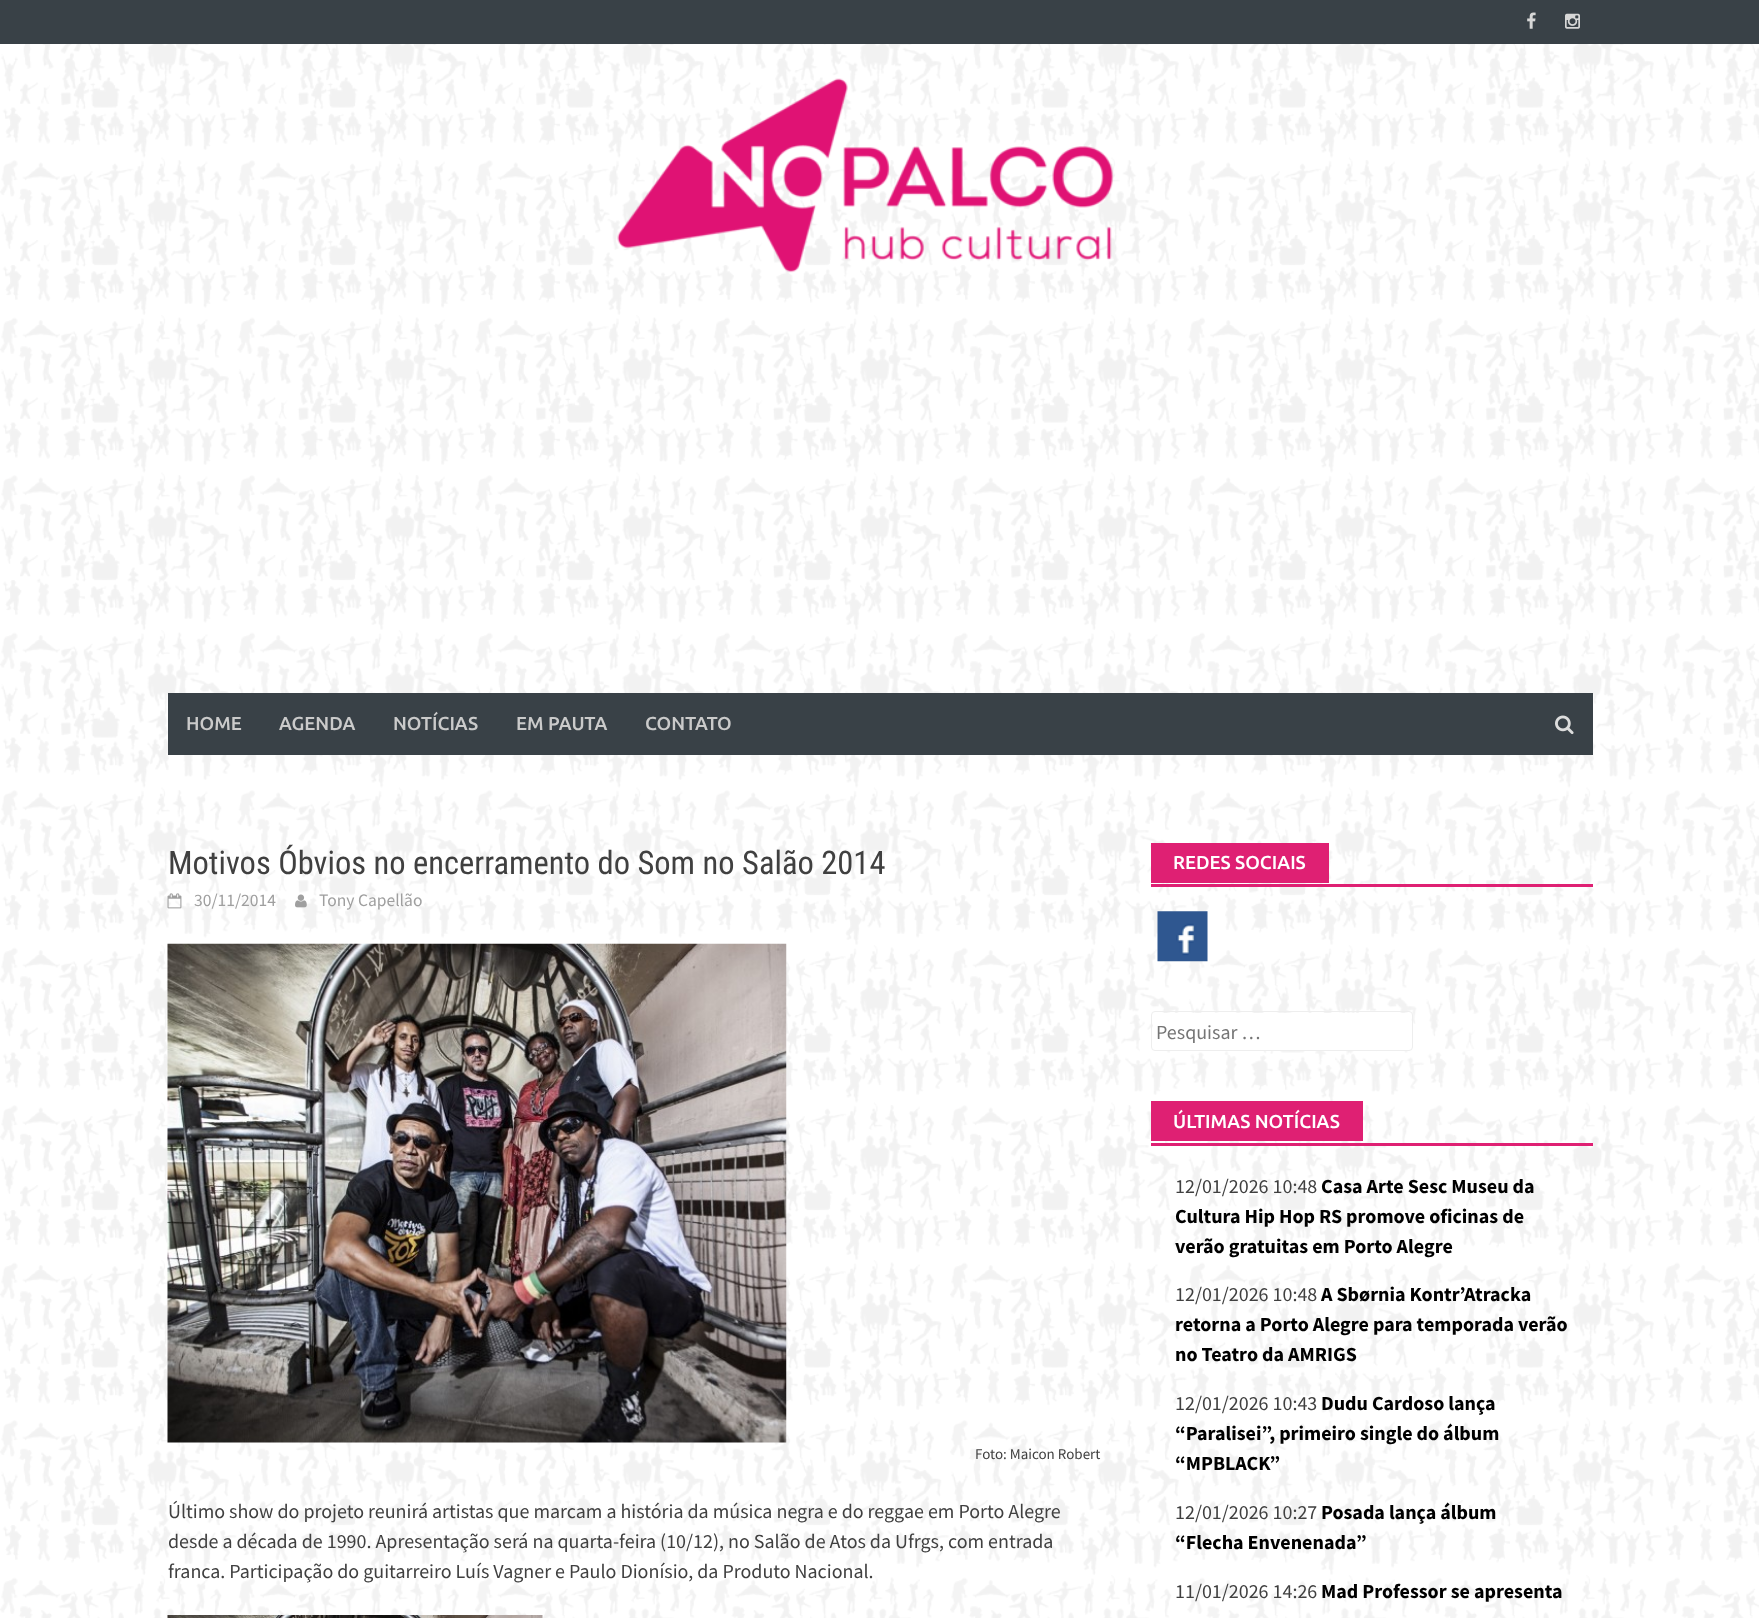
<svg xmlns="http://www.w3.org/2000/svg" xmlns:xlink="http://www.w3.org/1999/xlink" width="1759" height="1618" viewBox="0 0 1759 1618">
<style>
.cls-1{font:500 18.75px Ubuntu;fill:#cacaca}
.cls-2{font:32.5px Roboto Condensed;fill:#404040}
.cls-3{font:17.5px Source Sans Pro;fill:#9f9f9f}
.cls-4{font:15px Source Sans Pro;fill:#404040}
.cls-5{font:20px Source Sans Pro;fill:#404040}
.cls-6{font:500 18.75px Ubuntu;fill:#ffffff}
.cls-7{font:20px Source Sans Pro;fill:#757575}
.cls-8{font:bold 20px Source Sans Pro;fill:#000000}
</style>
<rect width="100%" height="100%" fill="#ffffff"/>
<image xlink:href="image0.png" x="0" y="44" width="1759" height="1574"/>
<rect fill="#394147" x="0" y="0" width="1759" height="44"/>
<image xlink:href="image1.png" x="1527" y="12" width="9" height="17"/>
<image xlink:href="image2.png" x="1565" y="13" width="15" height="16"/>
<image xlink:href="image3.png" x="617" y="78" width="497" height="195"/>
<rect fill="#394147" x="168" y="693" width="1425" height="62"/>
<image xlink:href="image4.png" x="1555" y="715" width="19" height="20"/>
<image xlink:href="image5.png" x="167" y="893" width="15" height="16"/>
<image xlink:href="image6.png" x="295" y="894" width="12" height="14"/>
<image xlink:href="image7.png" x="167" y="943" width="620" height="500"/>
<image xlink:href="image8.png" x="167" y="1615" width="376" height="3"/>
<rect fill="#df2073" x="1151" y="884" width="442" height="3"/>
<rect fill="#df2073" x="1151" y="843" width="178" height="40"/>
<image xlink:href="image9.png" x="1157" y="911" width="51" height="51"/>
<rect fill="#ffffff" x="1153" y="1013" width="258" height="37" rx="2.5"/>
<rect fill="none" stroke="#eeeeee" x="1151.5" y="1011.5" width="261" height="39" rx="3.5"/>
<rect fill="#df2073" x="1151" y="1143" width="442" height="3"/>
<rect fill="#df2073" x="1151" y="1101" width="212" height="40"/>
<text class="cls-1" x="186" y="730">HOME</text>
<text class="cls-1" x="279" y="730">AGENDA</text>
<text class="cls-1" x="393" y="730">NOTÍCIAS</text>
<text class="cls-1" x="516" y="730">EM PAUTA</text>
<text class="cls-1" x="645" y="730">CONTATO</text>
<text class="cls-2" x="168" y="874">Motivos Óbvios no encerramento do Som no Salão 2014</text>
<text class="cls-3" x="194" y="906">30/11/2014</text>
<text class="cls-3" x="319" y="906">Tony Capellão</text>
<text class="cls-4" x="975" y="1459">Foto: Maicon Robert</text>
<text class="cls-5"><tspan x="168" y="1518">Último show do projeto reunirá artistas que marcam a história da música negra e do reggae em Porto Alegre</tspan><tspan x="168" y="1548">desde a década de 1990. Apresentação será na quarta-feira (10/12), no Salão de Atos da Ufrgs, com entrada</tspan><tspan x="168" y="1578">franca. Participação do guitarreiro Luís Vagner e Paulo Dionísio, da Produto Nacional.</tspan></text>
<text class="cls-6" x="1173" y="869">REDES SOCIAIS</text>
<text class="cls-7" x="1156" y="1039">Pesquisar …</text>
<text class="cls-6" x="1173" y="1128">ÚLTIMAS NOTÍCIAS</text>
<text class="cls-5" x="1175" y="1193">12/01/2026 10:48</text>
<text class="cls-8" x="1321" y="1193">Casa Arte Sesc Museu da</text>
<text class="cls-8"><tspan x="1175" y="1223">Cultura Hip Hop RS promove oficinas de</tspan><tspan x="1175" y="1253">verão gratuitas em Porto Alegre</tspan></text>
<text class="cls-5" x="1175" y="1301">12/01/2026 10:48</text>
<text class="cls-8" x="1321" y="1301">A Sbørnia Kontr’Atracka</text>
<text class="cls-8"><tspan x="1175" y="1331">retorna a Porto Alegre para temporada verão</tspan><tspan x="1175" y="1361">no Teatro da AMRIGS</tspan></text>
<text class="cls-5" x="1175" y="1410">12/01/2026 10:43</text>
<text class="cls-8" x="1321" y="1410">Dudu Cardoso lança</text>
<text class="cls-8"><tspan x="1175" y="1440">“Paralisei”, primeiro single do álbum</tspan><tspan x="1175" y="1470">“MPBLACK”</tspan></text>
<text class="cls-5" x="1175" y="1519">12/01/2026 10:27</text>
<text class="cls-8" x="1321" y="1519">Posada lança álbum</text>
<text class="cls-8" x="1175" y="1549">“Flecha Envenenada”</text>
<text class="cls-5" x="1175" y="1598">11/01/2026 14:26</text>
<text class="cls-8" x="1321" y="1598">Mad Professor se apresenta</text>
</svg>
